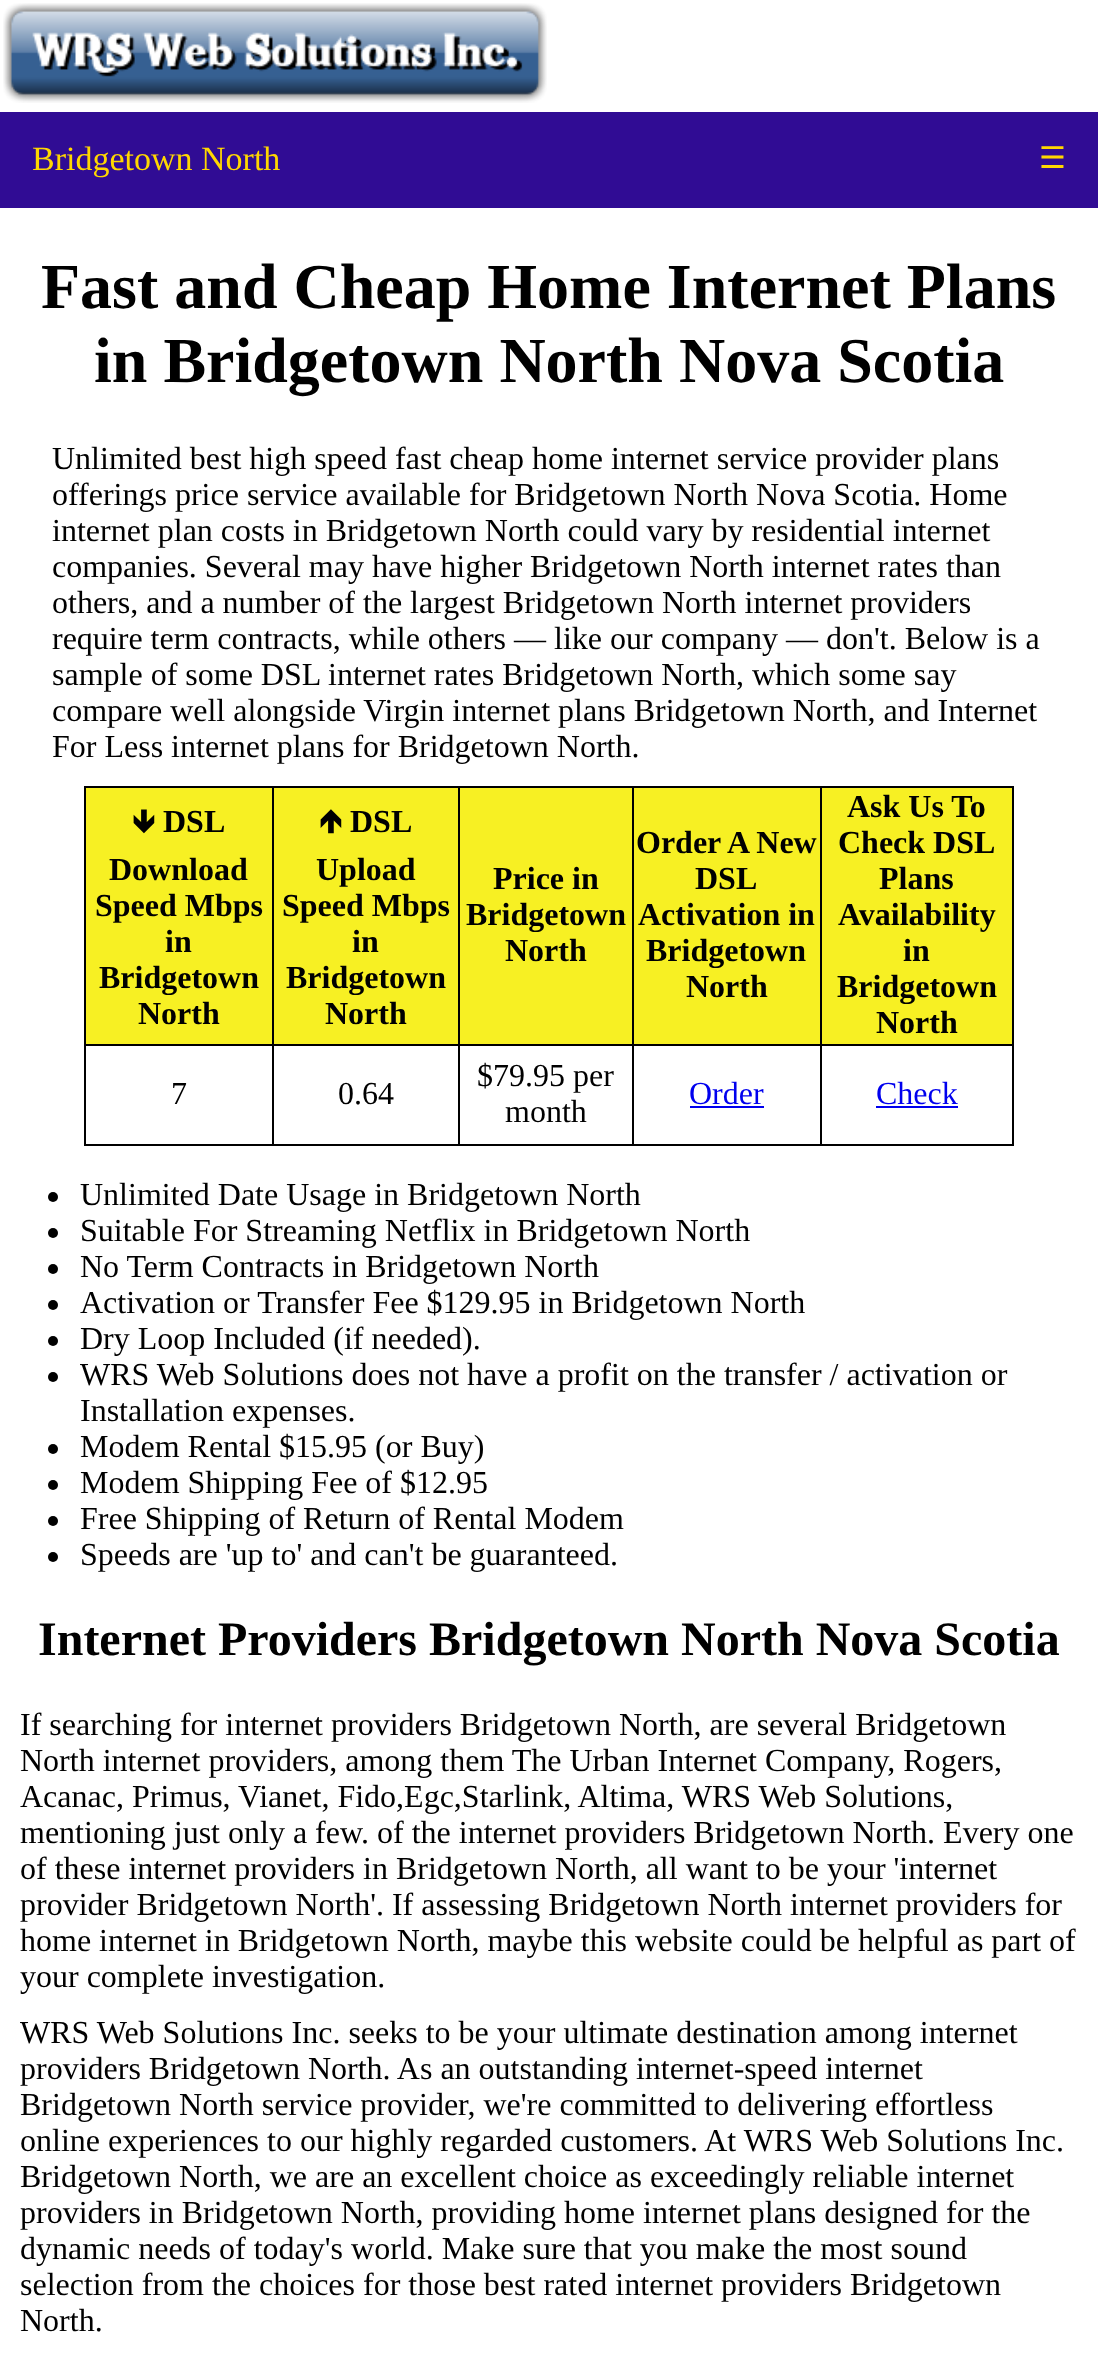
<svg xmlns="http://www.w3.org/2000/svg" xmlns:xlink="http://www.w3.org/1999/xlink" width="1098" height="2377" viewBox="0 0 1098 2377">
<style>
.cls-1{font:34px Liberation Serif;fill:#ffd700}
.cls-2{font:30px DejaVu Sans;fill:#ffd700}
.cls-3{font:bold 64px Liberation Serif;fill:#000000}
.cls-4{font:32px Liberation Serif;fill:#000000}
.cls-5{font:bold 32px 'Noto Sans Symbols 2';fill:#000000}
.cls-6{font:bold 32px Liberation Serif;fill:#000000}
.cls-7{font:32px Liberation Serif;fill:#0000ee}
.cls-8{font:bold 48px Liberation Serif;fill:#000000}
</style>
<rect width="100%" height="100%" fill="#ffffff"/>
<image xlink:href="image0.png" x="3" y="3" width="544" height="100"/>
<rect fill="#300c94" x="0" y="112" width="1098" height="96"/>
<rect fill="#000000" x="84" y="786" width="930" height="2"/>
<rect fill="#000000" x="1012" y="786" width="2" height="360"/>
<rect fill="#000000" x="84" y="1144" width="930" height="2"/>
<rect fill="#000000" x="84" y="786" width="2" height="360"/>
<rect fill="#f7f023" x="86" y="788" width="186" height="256"/>
<rect fill="#f7f023" x="274" y="788" width="184" height="256"/>
<rect fill="#000000" x="820" y="1044" width="194" height="2"/>
<rect fill="#000000" x="820" y="1044" width="2" height="102"/>
<rect fill="#000000" x="632" y="1044" width="190" height="2"/>
<rect fill="#000000" x="632" y="1044" width="2" height="102"/>
<rect fill="#000000" x="458" y="1044" width="176" height="2"/>
<rect fill="#000000" x="458" y="1044" width="2" height="102"/>
<rect fill="#000000" x="272" y="1044" width="188" height="2"/>
<rect fill="#000000" x="272" y="1044" width="2" height="102"/>
<rect fill="#000000" x="84" y="1044" width="190" height="2"/>
<rect fill="#000000" x="272" y="786" width="2" height="260"/>
<rect fill="#f7f023" x="460" y="788" width="172" height="256"/>
<rect fill="#000000" x="458" y="786" width="2" height="260"/>
<rect fill="#f7f023" x="634" y="788" width="186" height="256"/>
<rect fill="#000000" x="632" y="786" width="2" height="260"/>
<rect fill="#f7f023" x="822" y="788" width="190" height="256"/>
<rect fill="#000000" x="820" y="786" width="2" height="260"/>
<rect fill="#0000ee" x="690" y="1106" width="74" height="2"/>
<rect fill="#0000ee" x="876" y="1106" width="82" height="2"/>
<circle fill="#000000" cx="53" cy="1197" r="5"/>
<circle fill="#000000" cx="53" cy="1233" r="5"/>
<circle fill="#000000" cx="53" cy="1269" r="5"/>
<circle fill="#000000" cx="53" cy="1305" r="5"/>
<circle fill="#000000" cx="53" cy="1341" r="5"/>
<circle fill="#000000" cx="53" cy="1377" r="5"/>
<circle fill="#000000" cx="53" cy="1449" r="5"/>
<circle fill="#000000" cx="53" cy="1485" r="5"/>
<circle fill="#000000" cx="53" cy="1521" r="5"/>
<circle fill="#000000" cx="53" cy="1557" r="5"/>
<text class="cls-1" x="32" y="170">Bridgetown North</text>
<text class="cls-2" x="1039" y="168">☰</text>
<text class="cls-3" x="41" y="308">Fast and Cheap Home Internet Plans</text>
<text class="cls-3" x="94" y="382">in Bridgetown North Nova Scotia</text>
<text class="cls-4"><tspan x="52" y="469">Unlimited best high speed fast cheap home internet service provider plans</tspan><tspan x="52" y="505">offerings price service available for Bridgetown North Nova Scotia. Home</tspan><tspan x="52" y="541">internet plan costs in Bridgetown North could vary by residential internet</tspan><tspan x="52" y="577">companies. Several may have higher Bridgetown North internet rates than</tspan><tspan x="52" y="613">others, and a number of the largest Bridgetown North internet providers</tspan><tspan x="52" y="649">require term contracts, while others — like our company — don't. Below is a</tspan><tspan x="52" y="685">sample of some DSL internet rates Bridgetown North, which some say</tspan><tspan x="52" y="721">compare well alongside Virgin internet plans Bridgetown North, and Internet</tspan><tspan x="52" y="757">For Less internet plans for Bridgetown North.</tspan></text>
<text class="cls-5" x="132" y="832">🡻</text>
<text class="cls-6" x="163" y="832">DSL</text>
<text class="cls-6" x="109" y="880">Download</text>
<text class="cls-6" x="95" y="916">Speed Mbps</text>
<text class="cls-6" x="165" y="952">in</text>
<text class="cls-6" x="99" y="988">Bridgetown</text>
<text class="cls-6" x="138" y="1024">North</text>
<text class="cls-5" x="319" y="832">🡹</text>
<text class="cls-6" x="350" y="832">DSL</text>
<text class="cls-6" x="316" y="880">Upload</text>
<text class="cls-6" x="282" y="916">Speed Mbps</text>
<text class="cls-6" x="352" y="952">in</text>
<text class="cls-6" x="286" y="988">Bridgetown</text>
<text class="cls-6" x="325" y="1024">North</text>
<text class="cls-6" x="493" y="889">Price in</text>
<text class="cls-6" x="466" y="925">Bridgetown</text>
<text class="cls-6" x="505" y="961">North</text>
<text class="cls-6" x="636" y="853">Order A New</text>
<text class="cls-6" x="695" y="889">DSL</text>
<text class="cls-6" x="638" y="925">Activation in</text>
<text class="cls-6" x="646" y="961">Bridgetown</text>
<text class="cls-6" x="686" y="997">North</text>
<text class="cls-6" x="847" y="817">Ask Us To</text>
<text class="cls-6" x="838" y="853">Check DSL</text>
<text class="cls-6" x="879" y="889">Plans</text>
<text class="cls-6" x="838" y="925">Availability</text>
<text class="cls-6" x="903" y="961">in</text>
<text class="cls-6" x="837" y="997">Bridgetown</text>
<text class="cls-6" x="876" y="1033">North</text>
<text class="cls-4" x="171" y="1104">7</text>
<text class="cls-4" x="338" y="1104">0.64</text>
<text class="cls-4" x="477" y="1086">$79.95 per</text>
<text class="cls-4" x="505" y="1122">month</text>
<text class="cls-7" x="689" y="1104">Order</text>
<text class="cls-7" x="876" y="1104">Check</text>
<text class="cls-4"><tspan x="80" y="1205">Unlimited Date Usage in Bridgetown North</tspan><tspan x="80" y="1241">Suitable For Streaming Netflix in Bridgetown North</tspan><tspan x="80" y="1277">No Term Contracts in Bridgetown North</tspan><tspan x="80" y="1313">Activation or Transfer Fee $129.95 in Bridgetown North</tspan><tspan x="80" y="1349">Dry Loop Included (if needed).</tspan><tspan x="80" y="1385">WRS Web Solutions does not have a profit on the transfer / activation or</tspan><tspan x="80" y="1421">Installation expenses.</tspan><tspan x="80" y="1457">Modem Rental $15.95 (or Buy)</tspan><tspan x="80" y="1493">Modem Shipping Fee of $12.95</tspan><tspan x="80" y="1529">Free Shipping of Return of Rental Modem</tspan><tspan x="80" y="1565">Speeds are 'up to' and can't be guaranteed.</tspan></text>
<text class="cls-8" x="38" y="1655">Internet Providers Bridgetown North Nova Scotia</text>
<text class="cls-4"><tspan x="20" y="1735">If searching for internet providers Bridgetown North, are several Bridgetown</tspan><tspan x="20" y="1771">North internet providers, among them The Urban Internet Company, Rogers,</tspan><tspan x="20" y="1807">Acanac, Primus, Vianet, Fido,Egc,Starlink, Altima, WRS Web Solutions,</tspan><tspan x="20" y="1843">mentioning just only a few. of the internet providers Bridgetown North. Every one</tspan><tspan x="20" y="1879">of these internet providers in Bridgetown North, all want to be your 'internet</tspan><tspan x="20" y="1915">provider Bridgetown North'. If assessing Bridgetown North internet providers for</tspan><tspan x="20" y="1951">home internet in Bridgetown North, maybe this website could be helpful as part of</tspan><tspan x="20" y="1987">your complete investigation.</tspan><tspan x="20" y="2043">WRS Web Solutions Inc. seeks to be your ultimate destination among internet</tspan><tspan x="20" y="2079">providers Bridgetown North. As an outstanding internet-speed internet</tspan><tspan x="20" y="2115">Bridgetown North service provider, we're committed to delivering effortless</tspan><tspan x="20" y="2151">online experiences to our highly regarded customers. At WRS Web Solutions Inc.</tspan><tspan x="20" y="2187">Bridgetown North, we are an excellent choice as exceedingly reliable internet</tspan><tspan x="20" y="2223">providers in Bridgetown North, providing home internet plans designed for the</tspan><tspan x="20" y="2259">dynamic needs of today's world. Make sure that you make the most sound</tspan><tspan x="20" y="2295">selection from the choices for those best rated internet providers Bridgetown</tspan><tspan x="20" y="2331">North.</tspan></text>
</svg>
